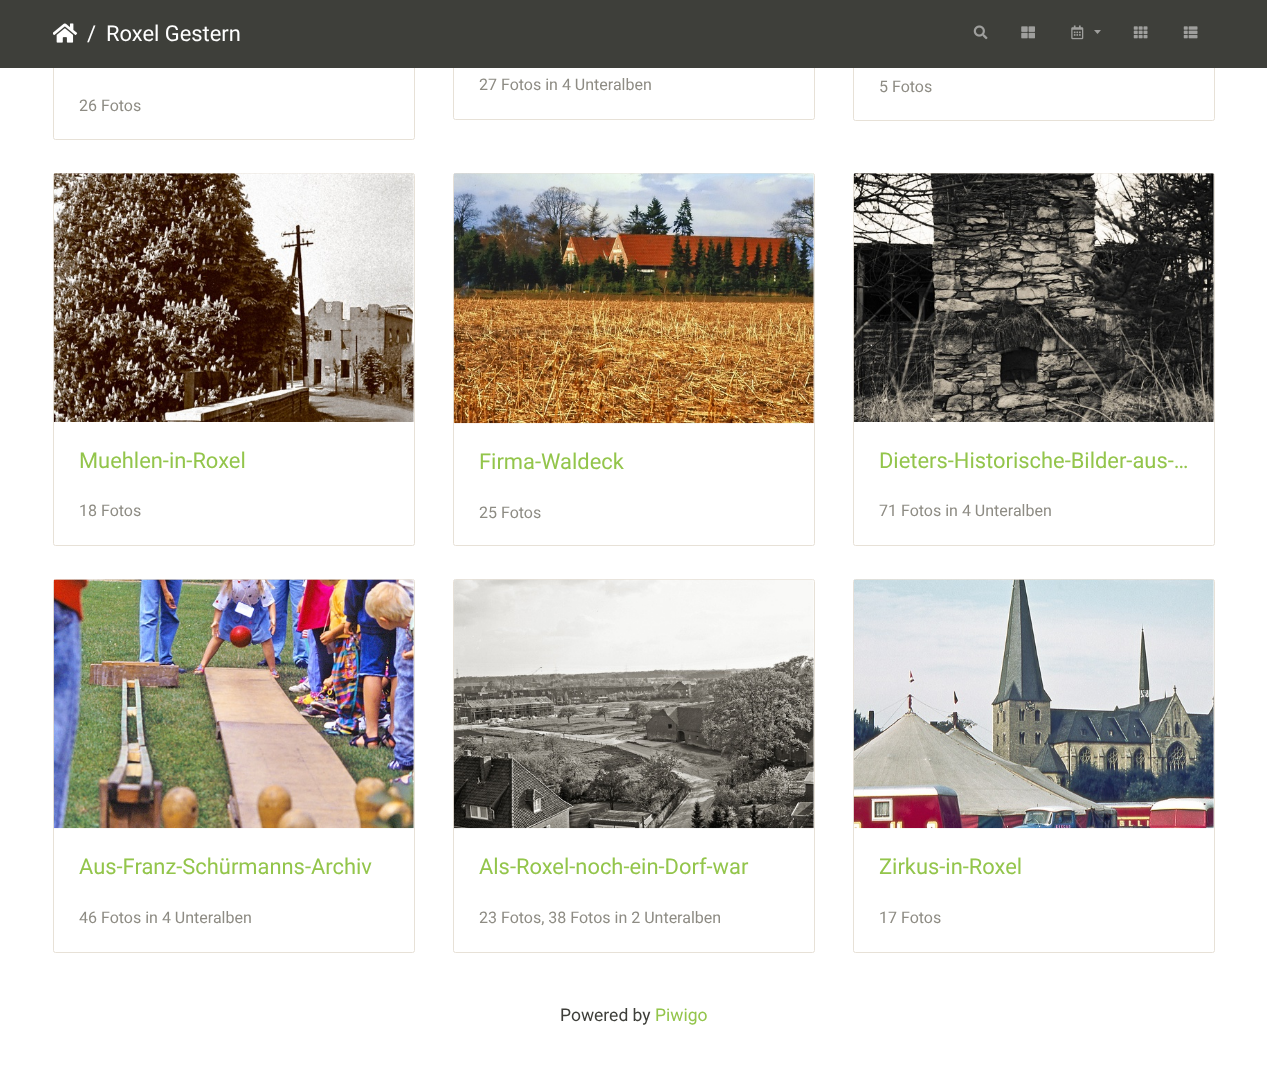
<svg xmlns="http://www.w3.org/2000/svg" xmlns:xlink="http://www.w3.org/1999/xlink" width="1267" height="1066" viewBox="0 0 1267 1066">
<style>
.cls-1{font:21.9px Roboto;fill:#ffffff}
.cls-2{font:16px Roboto;fill:#8e8c84}
.cls-3{font:21.9px Roboto;fill:#93c54b}
.cls-4{font:17.5px Roboto;fill:#3e3f3a}
.cls-5{font:17.5px Roboto;fill:#93c54b}
</style>
<rect width="100%" height="100%" fill="#ffffff"/>
<rect fill="none" stroke="#e7e1d7" x="453.5" y="-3.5" width="361" height="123" rx="2"/>
<rect fill="none" stroke="#e7e1d7" x="853.5" y="-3.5" width="361" height="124" rx="2"/>
<rect fill="none" stroke="#e7e1d7" x="53.5" y="-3.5" width="361" height="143" rx="2"/>
<rect fill="#3e3f3a" x="0" y="0" width="1267" height="68"/>
<image xlink:href="image0.png" x="53" y="23" width="25" height="20"/>
<image xlink:href="image1.png" x="973" y="25" width="15" height="15"/>
<image xlink:href="image2.png" x="1021" y="26" width="14" height="13"/>
<image xlink:href="image3.png" x="1071" y="25" width="13" height="15"/>
<path fill="#9f9f9d" d="M1094 30H1101L1097.5 34Z"/>
<image xlink:href="image4.png" x="1133" y="26" width="15" height="13"/>
<image xlink:href="image5.png" x="1183" y="26" width="15" height="13"/>
<rect fill="none" stroke="#e7e1d7" x="53.5" y="173.5" width="361" height="372" rx="2"/>
<image xlink:href="image6.png" x="53" y="173" width="361" height="249"/>
<rect fill="none" stroke="#e7e1d7" x="453.5" y="173.5" width="361" height="372" rx="2"/>
<image xlink:href="image7.png" x="453" y="173" width="361" height="251"/>
<rect fill="none" stroke="#e7e1d7" x="853.5" y="173.5" width="361" height="372" rx="2"/>
<image xlink:href="image8.png" x="853" y="173" width="361" height="249"/>
<rect fill="none" stroke="#e7e1d7" x="53.5" y="579.5" width="361" height="373" rx="2"/>
<image xlink:href="image9.png" x="53" y="579" width="361" height="250"/>
<rect fill="none" stroke="#e7e1d7" x="453.5" y="579.5" width="361" height="373" rx="2"/>
<image xlink:href="image10.png" x="453" y="579" width="361" height="250"/>
<rect fill="none" stroke="#e7e1d7" x="853.5" y="579.5" width="361" height="373" rx="2"/>
<image xlink:href="image11.png" x="853" y="579" width="361" height="250"/>
<text class="cls-1" x="87" y="41">/</text>
<text class="cls-1" x="106" y="41">Roxel Gestern</text>
<text class="cls-2" x="479" y="90">27 Fotos in 4 Unteralben</text>
<text class="cls-2" x="879" y="92">5 Fotos</text>
<text class="cls-2" x="79" y="111">26 Fotos</text>
<text class="cls-3" x="79" y="468">Muehlen-in-Roxel</text>
<text class="cls-2" x="79" y="516">18 Fotos</text>
<text class="cls-3" x="479" y="469">Firma-Waldeck</text>
<text class="cls-2" x="479" y="518">25 Fotos</text>
<text class="cls-3" x="879" y="468">Dieters-Historische-Bilder-aus-…</text>
<text class="cls-2" x="879" y="516">71 Fotos in 4 Unteralben</text>
<text class="cls-3" x="79" y="874">Aus-Franz-Schürmanns-Archiv</text>
<text class="cls-2" x="79" y="923">46 Fotos in 4 Unteralben</text>
<text class="cls-3" x="479" y="874">Als-Roxel-noch-ein-Dorf-war</text>
<text class="cls-2" x="479" y="923">23 Fotos, 38 Fotos in 2 Unteralben</text>
<text class="cls-3" x="879" y="874">Zirkus-in-Roxel</text>
<text class="cls-2" x="879" y="923">17 Fotos</text>
<text class="cls-4" x="560" y="1021">Powered by</text>
<text class="cls-5" x="655" y="1021">Piwigo</text>
</svg>
